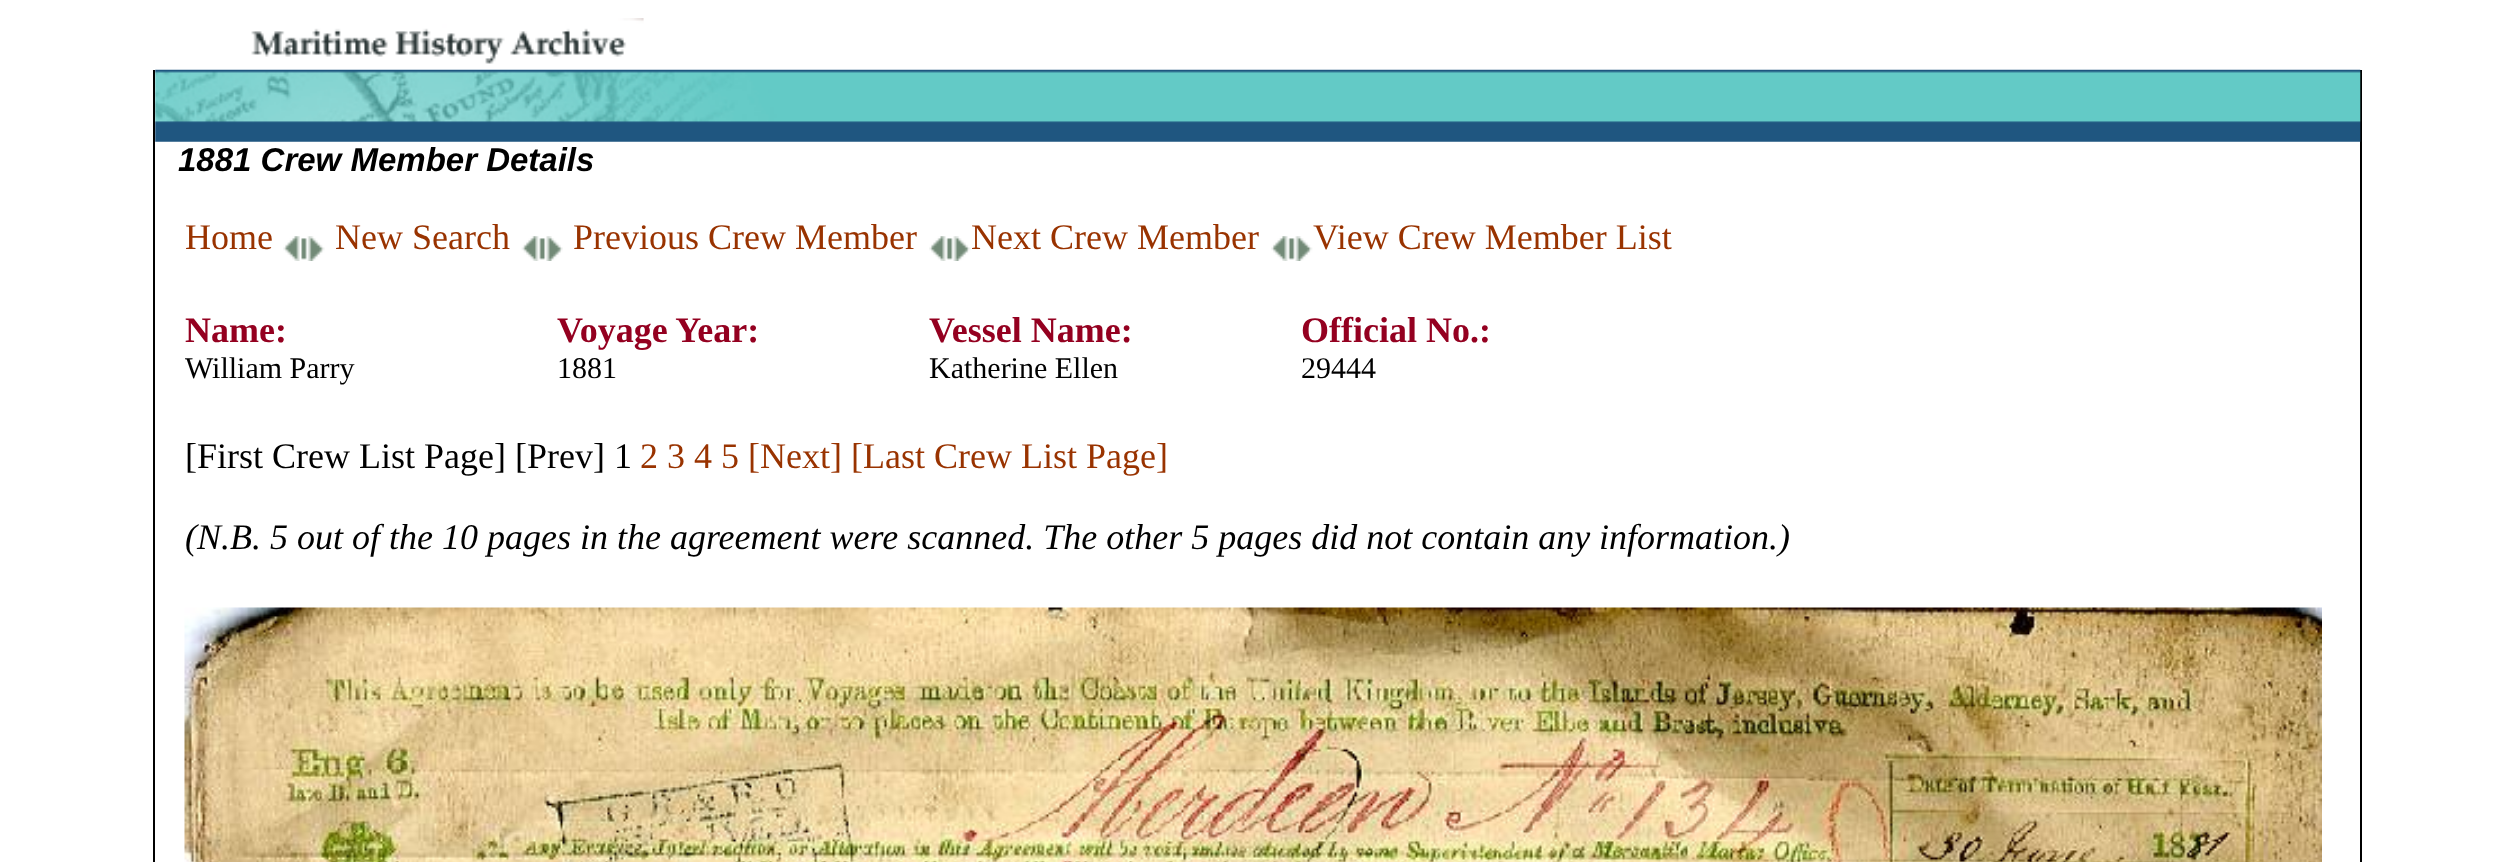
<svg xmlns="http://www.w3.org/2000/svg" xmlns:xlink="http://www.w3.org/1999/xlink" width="2514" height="862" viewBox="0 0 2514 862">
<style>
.cls-1{font:italic bold 33px Liberation Sans;fill:#000000}
.cls-2{font:36px Liberation Serif;fill:#993300}
.cls-3{font:bold 36px Liberation Serif;fill:#940020}
.cls-4{font:30px Liberation Serif;fill:#000000}
.cls-5{font:36px Liberation Serif;fill:#000000}
.cls-6{font:italic 36px Liberation Serif;fill:#000000}
</style>
<rect width="100%" height="100%" fill="#ffffff"/>
<image xlink:href="image0.png" x="251" y="18" width="393" height="46"/>
<rect fill="#000000" x="153" y="70" width="2" height="792"/>
<rect fill="#000000" x="2360" y="70" width="2" height="792"/>
<image xlink:href="image1.png" x="155" y="69" width="2206" height="73"/>
<image xlink:href="image2.png" x="283" y="236" width="42" height="25"/>
<image xlink:href="image3.png" x="521" y="236" width="42" height="25"/>
<image xlink:href="image4.png" x="929" y="236" width="42" height="25"/>
<image xlink:href="image5.png" x="1271" y="236" width="42" height="25"/>
<image xlink:href="image6.png" x="184" y="607" width="2138" height="255"/>
<text class="cls-1" x="178" y="171">1881 Crew Member Details</text>
<text class="cls-2" x="185" y="249">Home</text>
<text class="cls-2" x="335" y="249">New Search</text>
<text class="cls-2" x="573" y="249">Previous Crew Member</text>
<text class="cls-2" x="971" y="249">Next Crew Member</text>
<text class="cls-2" x="1313" y="249">View Crew Member List</text>
<text class="cls-3" x="185" y="342">Name:</text>
<text class="cls-4" x="185" y="378">William Parry</text>
<text class="cls-3" x="557" y="342">Voyage Year:</text>
<text class="cls-4" x="557" y="378">1881</text>
<text class="cls-3" x="929" y="342">Vessel Name:</text>
<text class="cls-4" x="929" y="378">Katherine Ellen</text>
<text class="cls-3" x="1301" y="342">Official No.:</text>
<text class="cls-4" x="1301" y="378">29444</text>
<text class="cls-5" x="185" y="468">[First Crew List Page] [Prev] 1</text>
<text class="cls-2" x="640" y="468">2 3 4 5 [Next] [Last Crew List Page]</text>
<text class="cls-6" x="185" y="549">(N.B. 5 out of the 10 pages in the agreement were scanned. The other 5 pages did not contain any information.)</text>
</svg>
